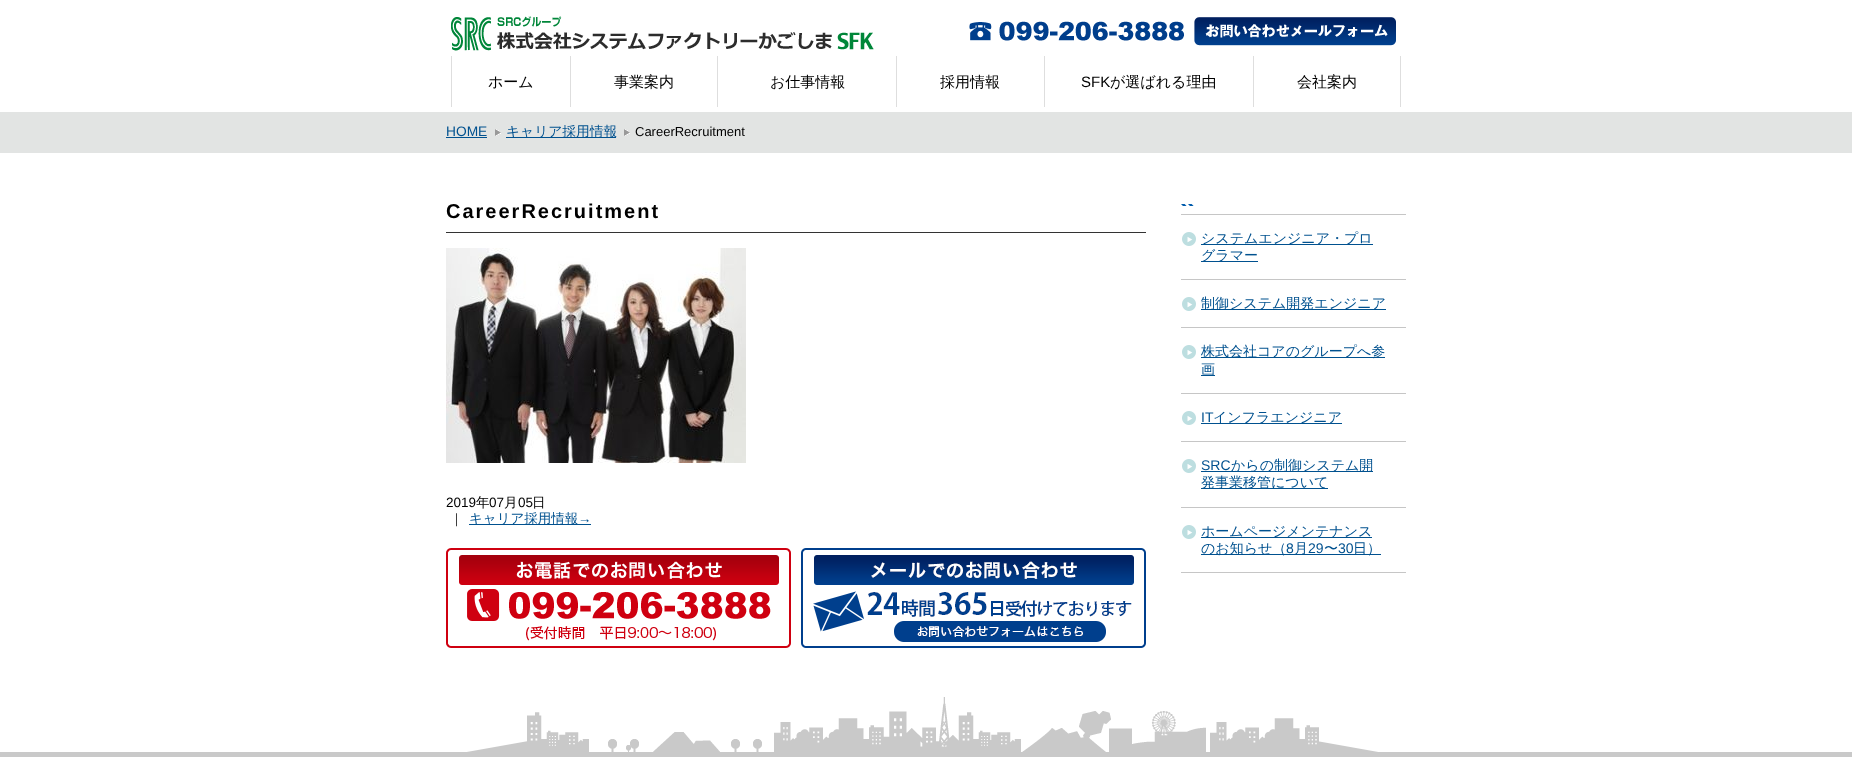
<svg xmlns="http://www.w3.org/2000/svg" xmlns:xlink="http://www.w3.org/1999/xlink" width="1852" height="757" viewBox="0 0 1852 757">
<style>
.cls-1{font:500 15px WenQuanYi Zen Hei;fill:#000000}
.cls-2{font:15px Liberation Sans;fill:#000000}
.cls-3{font:13.75px Liberation Sans;fill:#00518f}
.cls-4{font:500 13.75px WenQuanYi Zen Hei;fill:#00518f}
.cls-5{font:13px Liberation Sans;fill:#000000}
.cls-6{font:bold 20px Liberation Sans;letter-spacing:2px;fill:#000000}
.cls-7{font:13.5px Liberation Sans;fill:#000000}
.cls-8{font:500 13.5px WenQuanYi Zen Hei;fill:#000000}
.cls-9{font:500 13px WenQuanYi Zen Hei;fill:#000000}
.cls-10{font:500 13.5px WenQuanYi Zen Hei;fill:#00518f}
.cls-11{font:13.5px Liberation Sans;fill:#00518f}
.cls-12{font:500 14px WenQuanYi Zen Hei;fill:#00518f}
.cls-13{font:14px Liberation Sans;fill:#00518f}
</style>
<rect width="100%" height="100%" fill="#ffffff"/>
<image xlink:href="image0.png" x="451" y="16" width="423" height="35"/>
<image xlink:href="image1.png" x="969" y="21" width="215" height="20"/>
<image xlink:href="image2.png" x="1194" y="17" width="202" height="29"/>
<rect fill="#dedede" x="570" y="56" width="1" height="51"/>
<rect fill="#dedede" x="451" y="56" width="1" height="51"/>
<rect fill="#dedede" x="717" y="56" width="1" height="51"/>
<rect fill="#dedede" x="896" y="56" width="1" height="51"/>
<rect fill="#dedede" x="1044" y="56" width="1" height="51"/>
<rect fill="#dedede" x="1253" y="56" width="1" height="51"/>
<rect fill="#dedede" x="1400" y="56" width="1" height="51"/>
<rect fill="#e2e4e3" x="0" y="112" width="1852" height="41"/>
<rect fill="#00518f" x="446" y="137" width="41" height="1"/>
<image xlink:href="image3.png" x="495" y="129" width="6" height="7"/>
<rect fill="#00518f" x="506" y="137" width="110" height="1"/>
<image xlink:href="image3.png" x="624" y="129" width="6" height="7"/>
<rect fill="#333333" x="446" y="232" width="700" height="1"/>
<image xlink:href="image4.png" x="446" y="248" width="300" height="215"/>
<rect fill="#00518f" x="469" y="524" width="122" height="1"/>
<image xlink:href="image5.png" x="446" y="548" width="345" height="100"/>
<image xlink:href="image6.png" x="801" y="548" width="345" height="100"/>
<image xlink:href="image7.png" x="1181" y="204" width="13" height="2"/>
<rect fill="#c6c6c6" x="1181" y="214" width="225" height="1"/>
<rect fill="#c6c6c6" x="1181" y="279" width="225" height="1"/>
<image xlink:href="image8.png" x="1182" y="232" width="14" height="14"/>
<rect fill="#00518f" x="1201" y="244" width="172" height="1"/>
<rect fill="#00518f" x="1201" y="261" width="57" height="1"/>
<rect fill="#c6c6c6" x="1181" y="327" width="225" height="1"/>
<image xlink:href="image8.png" x="1182" y="297" width="14" height="14"/>
<rect fill="#00518f" x="1201" y="309" width="185" height="1"/>
<rect fill="#c6c6c6" x="1181" y="393" width="225" height="1"/>
<image xlink:href="image8.png" x="1182" y="345" width="14" height="14"/>
<rect fill="#00518f" x="1201" y="357" width="184" height="1"/>
<rect fill="#00518f" x="1201" y="375" width="14" height="1"/>
<rect fill="#c6c6c6" x="1181" y="441" width="225" height="1"/>
<image xlink:href="image8.png" x="1182" y="411" width="14" height="14"/>
<rect fill="#00518f" x="1201" y="423" width="141" height="1"/>
<rect fill="#c6c6c6" x="1181" y="507" width="225" height="1"/>
<image xlink:href="image8.png" x="1182" y="459" width="14" height="14"/>
<rect fill="#00518f" x="1201" y="471" width="172" height="1"/>
<rect fill="#00518f" x="1201" y="488" width="127" height="1"/>
<rect fill="#c6c6c6" x="1181" y="572" width="225" height="1"/>
<image xlink:href="image8.png" x="1182" y="525" width="14" height="14"/>
<rect fill="#00518f" x="1201" y="537" width="171" height="1"/>
<rect fill="#00518f" x="1201" y="554" width="180" height="1"/>
<image xlink:href="image9.png" x="467" y="697" width="911" height="55"/>
<rect fill="#c9c9c9" x="0" y="752" width="1852" height="5"/>
<text class="cls-1" x="488" y="87">ホーム</text>
<text class="cls-1" x="614" y="87">事業案内</text>
<text class="cls-1" x="770" y="87">お仕事情報</text>
<text class="cls-1" x="940" y="87">採用情報</text>
<text class="cls-2" x="1081" y="87">SFK</text>
<text class="cls-1" x="1110" y="87">が選ばれる理由</text>
<text class="cls-1" x="1297" y="87">会社案内</text>
<text class="cls-3" x="446" y="136">HOME</text>
<text class="cls-4" x="506" y="136">キャリア採用情報</text>
<text class="cls-5" x="635" y="136">CareerRecruitment</text>
<text class="cls-6" x="446" y="218">CareerRecruitment</text>
<text class="cls-7" x="446" y="507">2019</text>
<text class="cls-8" x="476" y="507">年</text>
<text class="cls-7" x="489" y="507">07</text>
<text class="cls-8" x="504" y="507">月</text>
<text class="cls-7" x="518" y="507">05</text>
<text class="cls-8" x="532" y="507">日</text>
<text class="cls-9" x="450" y="523">｜</text>
<text class="cls-10" x="469" y="523">キャリア採用情報</text>
<text class="cls-11" x="578" y="523">→</text>
<text class="cls-12"><tspan x="1201" y="243">システムエンジニア・プロ</tspan><tspan x="1201" y="260">グラマー</tspan></text>
<text class="cls-12" x="1201" y="308">制御システム開発エンジニア</text>
<text class="cls-12"><tspan x="1201" y="356">株式会社コアのグループへ参</tspan><tspan x="1201" y="374">画</tspan></text>
<text class="cls-13" x="1201" y="422">IT</text>
<text class="cls-12" x="1213" y="422">インフラエンジニア</text>
<text class="cls-13" x="1201" y="470">SRC</text>
<text class="cls-12" x="1231" y="470">からの制御システム開</text>
<text class="cls-12" x="1201" y="487">発事業移管について</text>
<text class="cls-12"><tspan x="1201" y="536">ホームページメンテナンス</tspan><tspan x="1201" y="553">のお知らせ（</tspan></text>
<text class="cls-13" x="1286" y="553">8</text>
<text class="cls-12" x="1294" y="553">月</text>
<text class="cls-13" x="1308" y="553">29</text>
<text class="cls-12" x="1324" y="553">〜</text>
<text class="cls-13" x="1338" y="553">30</text>
<text class="cls-12" x="1353" y="553">日）</text>
</svg>
